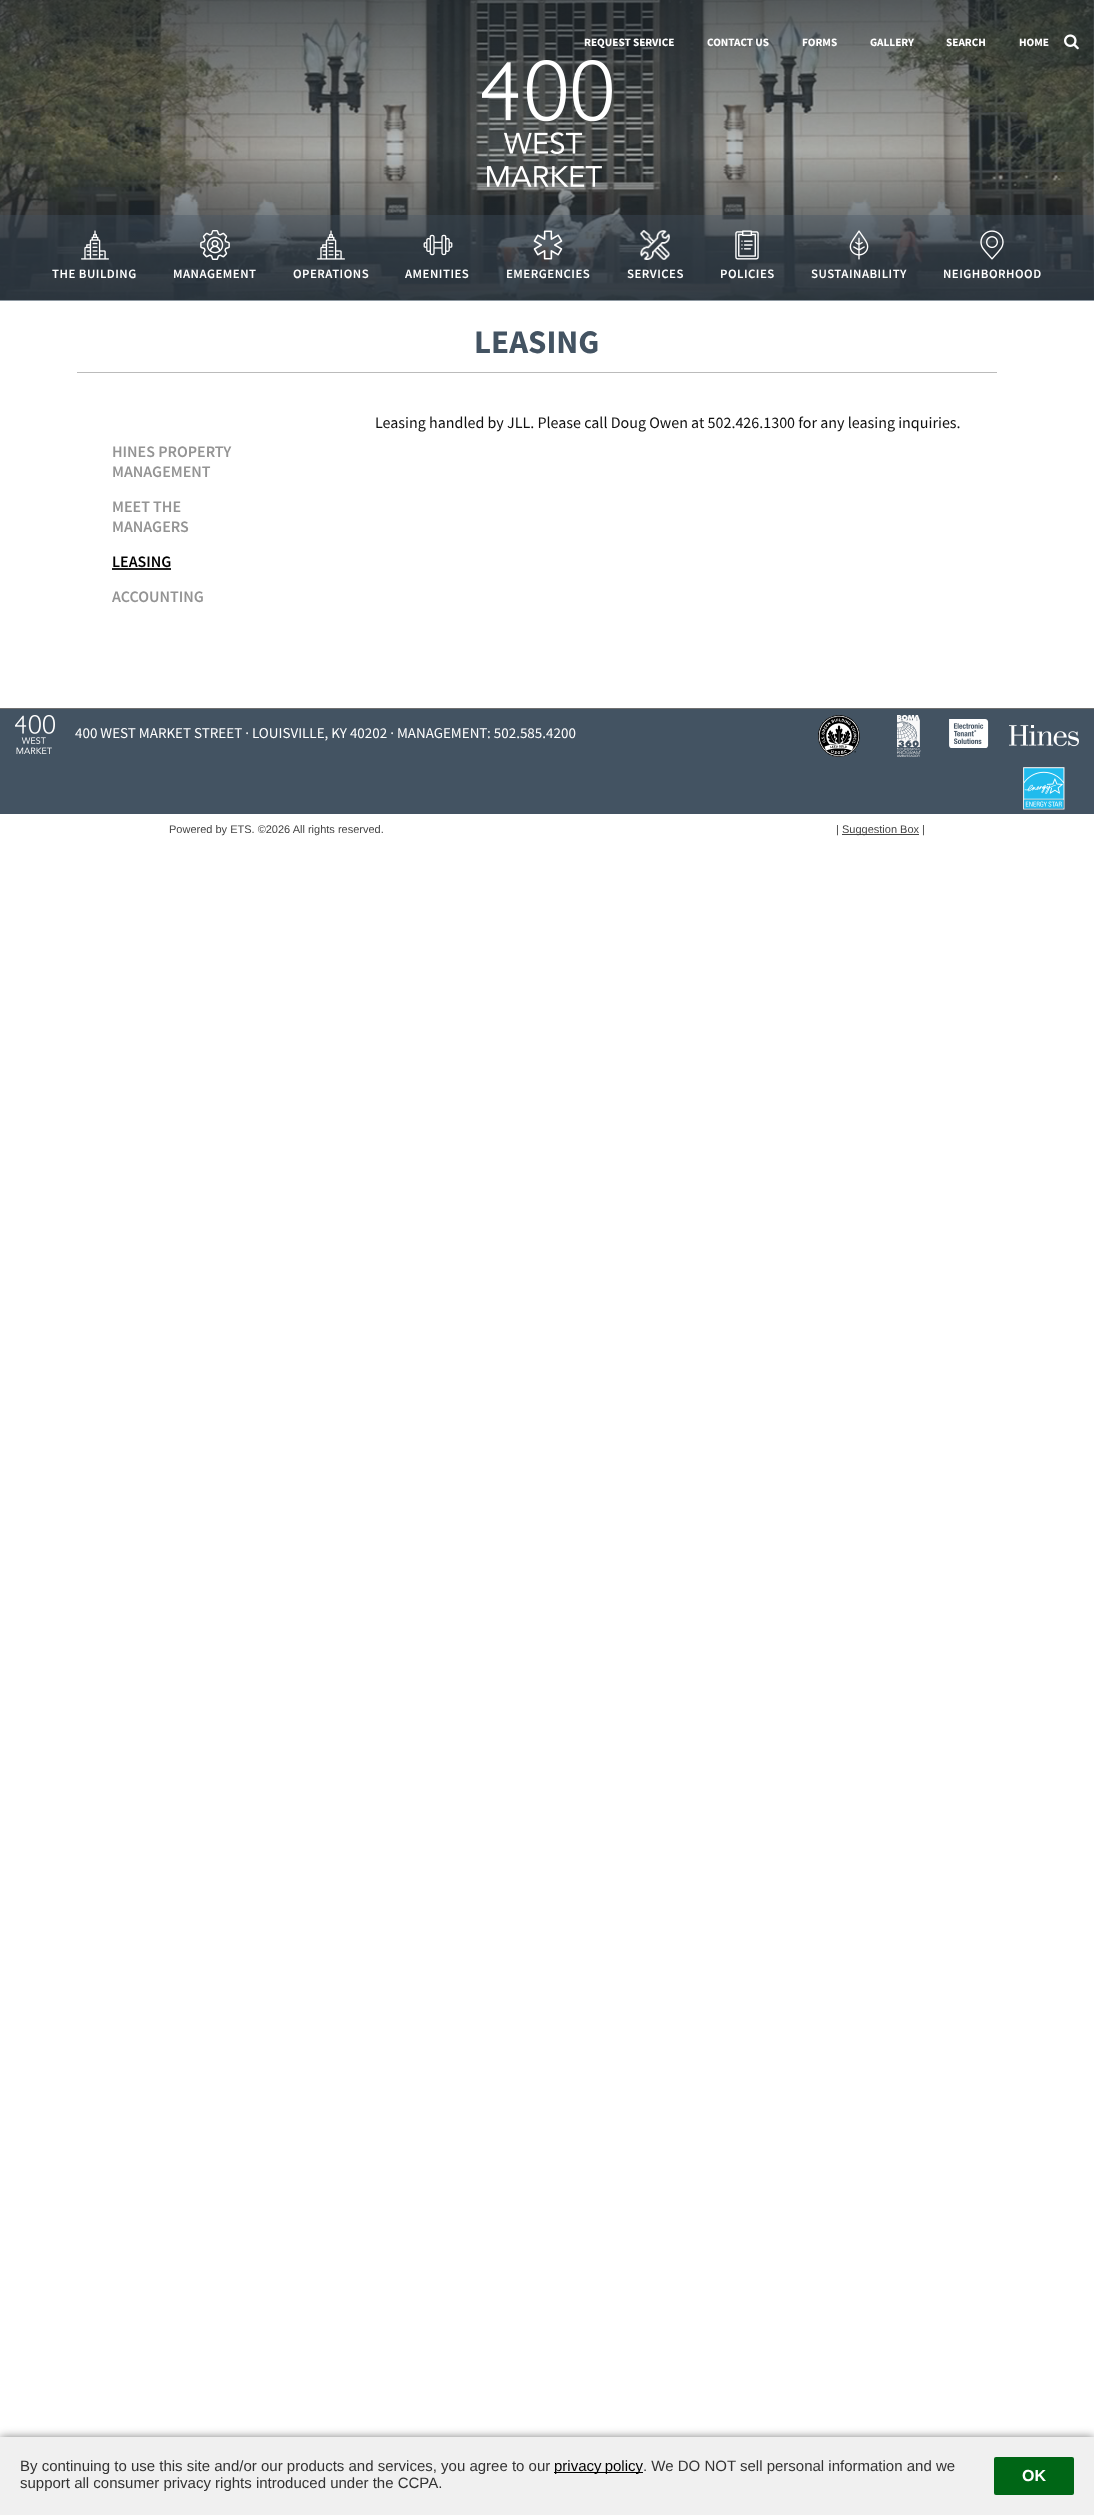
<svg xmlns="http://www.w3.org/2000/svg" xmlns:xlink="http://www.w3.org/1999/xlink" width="1094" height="2515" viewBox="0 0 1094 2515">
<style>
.cls-1{font:bold 11.25px Source Sans Pro;fill:#ffffff}
.cls-2{font:600 12.75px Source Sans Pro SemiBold;letter-spacing:0.5px;fill:#ffffff}
.cls-3{font:bold 33px Source Sans Pro;fill:#435362}
.cls-4{font:16px Source Sans Pro;fill:#111111}
.cls-5{font:600 16px Source Sans Pro SemiBold;fill:#949494}
.cls-6{font:600 16px Source Sans Pro SemiBold;fill:#000000}
.cls-7{font:15px Source Sans Pro;fill:#ffffff}
.cls-8{font:11px Liberation Sans;fill:#444444}
.cls-9{font:15px Liberation Sans;fill:#333333}
.cls-10{font:15px Liberation Sans;fill:#000000}
.cls-11{font:bold 16px Liberation Sans;fill:#ffffff}
</style>
<defs>
<linearGradient id="g1" gradientUnits="userSpaceOnUse" x1="547" y1="0" x2="547" y2="300"><stop offset="0" stop-color="#000000" stop-opacity="0.6"/><stop offset="0.5" stop-color="#000000" stop-opacity="0"/><stop offset="1" stop-color="#000000" stop-opacity="0.9"/></linearGradient>
</defs>
<rect width="100%" height="100%" fill="#ffffff"/>
<image xlink:href="image11.png" x="0" y="0" width="1094" height="300"/>
<rect fill="url(#g1)" x="0" y="0" width="1094" height="300"/>
<rect fill="#435362" fill-opacity="0.38" x="0" y="0" width="1094" height="215"/>
<image xlink:href="image0.png" x="1064" y="34" width="15" height="16"/>
<image xlink:href="image1.png" x="482" y="60" width="130" height="127"/>
<rect fill="#435362" fill-opacity="0.6" x="0" y="215" width="1094" height="86"/>
<image xlink:href="image2.png" x="81" y="230" width="28" height="30"/>
<image xlink:href="image3.png" x="200" y="230" width="30" height="30"/>
<image xlink:href="image4.png" x="317" y="230" width="28" height="30"/>
<image xlink:href="image5.png" x="423" y="234" width="30" height="22"/>
<image xlink:href="image6.png" x="533" y="230" width="30" height="30"/>
<image xlink:href="image7.png" x="640" y="230" width="30" height="30"/>
<image xlink:href="image8.png" x="735" y="230" width="24" height="30"/>
<image xlink:href="image9.png" x="849" y="230" width="20" height="30"/>
<image xlink:href="image10.png" x="980" y="230" width="24" height="30"/>
<rect fill="#bbbbbb" x="77" y="372" width="920" height="1"/>
<rect fill="#222222" x="112" y="568" width="59" height="2"/>
<rect fill="#435362" x="0" y="709" width="1094" height="105"/>
<rect fill="#707070" x="0" y="708" width="1094" height="1"/>
<image xlink:href="image12.png" x="15" y="715" width="40" height="39"/>
<image xlink:href="image13.png" x="818" y="715" width="42" height="42"/>
<image xlink:href="image14.png" x="897" y="715" width="24" height="42"/>
<image xlink:href="image15.png" x="949" y="719" width="40" height="29"/>
<image xlink:href="image16.png" x="1009" y="725" width="70" height="22"/>
<image xlink:href="image17.png" x="1023" y="767" width="42" height="43"/>
<rect fill="#444444" x="842" y="834" width="77" height="1"/>
<rect fill="#000000" fill-opacity="0.5" filter="blur(5px)" x="0" y="2437" width="1094" height="78"/>
<rect fill="#f0f0f0" x="0" y="2437" width="1094" height="78"/>
<rect fill="#000000" x="554" y="2472" width="89" height="1"/>
<rect fill="#006616" x="994" y="2457" width="80" height="38" rx="2"/>
<text class="cls-1" x="584" y="46">REQUEST SERVICE</text>
<text class="cls-1" x="707" y="46">CONTACT US</text>
<text class="cls-1" x="802" y="46">FORMS</text>
<text class="cls-1" x="870" y="46">GALLERY</text>
<text class="cls-1" x="946" y="46">SEARCH</text>
<text class="cls-1" x="1019" y="46">HOME</text>
<text class="cls-2" x="52" y="278">THE BUILDING</text>
<text class="cls-2" x="173" y="278">MANAGEMENT</text>
<text class="cls-2" x="293" y="278">OPERATIONS</text>
<text class="cls-2" x="405" y="278">AMENITIES</text>
<text class="cls-2" x="506" y="278">EMERGENCIES</text>
<text class="cls-2" x="627" y="278">SERVICES</text>
<text class="cls-2" x="720" y="278">POLICIES</text>
<text class="cls-2" x="811" y="278">SUSTAINABILITY</text>
<text class="cls-2" x="943" y="278">NEIGHBORHOOD</text>
<text class="cls-3" x="474" y="353">LEASING</text>
<text class="cls-4" x="375" y="428">Leasing handled by JLL. Please call Doug Owen at 502.426.1300 for any leasing inquiries.</text>
<text class="cls-5"><tspan x="112" y="457">HINES PROPERTY</tspan><tspan x="112" y="477">MANAGEMENT</tspan></text>
<text class="cls-5"><tspan x="112" y="512">MEET THE</tspan><tspan x="112" y="532">MANAGERS</tspan></text>
<text class="cls-6" x="112" y="567">LEASING</text>
<text class="cls-5" x="112" y="602">ACCOUNTING</text>
<text class="cls-7" x="75" y="738">400 WEST MARKET STREET · LOUISVILLE, KY 40202 · MANAGEMENT: 502.585.4200</text>
<text class="cls-8" x="169" y="833">Powered by ETS. ©2026 All rights reserved.</text>
<text class="cls-8" x="836" y="833">|</text>
<text class="cls-8" x="842" y="833">Suggestion Box |</text>
<text class="cls-9" x="20" y="2471">By continuing to use this site and/or our products and services, you agree to our</text>
<text class="cls-10" x="554" y="2471" word-spacing="-1">privacy policy</text>
<text class="cls-9" x="643" y="2471">. We DO NOT sell personal information and we</text>
<text class="cls-9" x="20" y="2488">support all consumer privacy rights introduced under the CCPA.</text>
<text class="cls-11" x="1022" y="2481">OK</text>
</svg>
